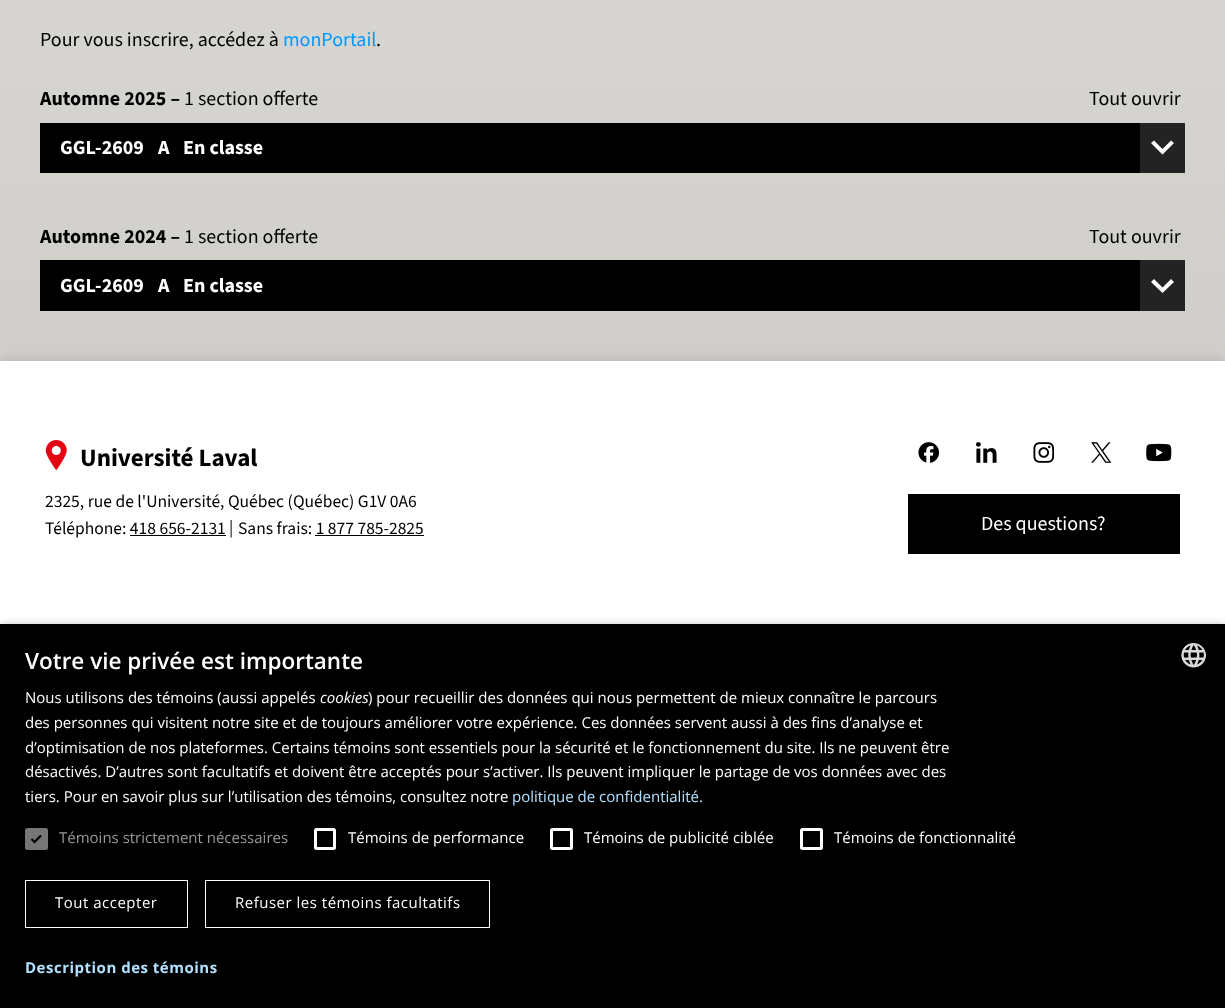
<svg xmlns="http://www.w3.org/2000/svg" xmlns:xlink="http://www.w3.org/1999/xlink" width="1225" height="1008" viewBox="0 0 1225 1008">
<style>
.cls-1{font:20px 'Source Sans 3';fill:#000000}
.cls-2{font:20px 'Source Sans 3';fill:#0099ff}
.cls-3{font:bold 20px 'Source Sans 3';fill:#000000}
.cls-4{font:bold 20px 'Source Sans 3';fill:#ffffff}
.cls-5{font:bold 25px 'Source Sans 3';fill:#000000}
.cls-6{font:17.5px 'Source Sans 3';fill:#000000}
.cls-7{font:20px 'Source Sans 3';fill:#ffffff}
.cls-8{font:600 22.5px Open Sans;fill:#ffffff}
.cls-9{font:15px Open Sans;fill:#ffffff}
.cls-10{font:italic 15px Open Sans;fill:#ffffff}
.cls-11{font:15px Open Sans;fill:#b2e0ff}
.cls-12{font:15px Open Sans;fill:#999999}
.cls-13{font:15px Open Sans;letter-spacing:0.5px;fill:#ffffff}
.cls-14{font:bold 15px Open Sans;letter-spacing:0.5px;fill:#b2e0ff}
</style>
<defs>
<linearGradient id="g1" gradientUnits="userSpaceOnUse" x1="612" y1="-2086" x2="613" y2="361"><stop offset="0" stop-color="#ffffff"/><stop offset="1" stop-color="#d0cec9"/></linearGradient>
</defs>
<rect width="100%" height="100%" fill="#ffffff"/>
<rect fill="url(#g1)" x="0" y="0" width="1225" height="361"/>
<rect fill="#232323" x="1140" y="123" width="45" height="50"/>
<rect fill="#000000" x="40" y="123" width="1100" height="50"/>
<path fill="#ffffff" d="M1154 140.5L1162.5 149L1171 140.5L1174 143L1162.5 154.5L1151 143Z"/>
<rect fill="#232323" x="1140" y="260" width="45" height="51"/>
<rect fill="#000000" x="40" y="260" width="1100" height="51"/>
<path fill="#ffffff" d="M1154 279L1162.5 287.5L1171 279L1174 282L1162.5 293L1151 282Z"/>
<rect fill="#000000" fill-opacity="0.15" filter="blur(6px)" x="0" y="361" width="1225" height="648"/>
<rect fill="#ffffff" x="0" y="361" width="1225" height="263"/>
<image xlink:href="image0.png" x="45" y="440" width="22" height="30"/>
<rect fill="#000000" x="130" y="535" width="96" height="1"/>
<rect fill="#000000" x="315" y="535" width="109" height="1"/>
<image xlink:href="image1.png" x="918" y="442" width="22" height="21"/>
<image xlink:href="image2.png" x="976" y="442" width="21" height="21"/>
<image xlink:href="image3.png" x="1033" y="442" width="22" height="21"/>
<image xlink:href="image4.png" x="1091" y="442" width="21" height="21"/>
<image xlink:href="image5.png" x="1146" y="443" width="26" height="19"/>
<rect fill="#000000" x="908" y="494" width="272" height="60"/>
<rect fill="#000000" fill-opacity="0.35" filter="blur(5px)" x="1" y="626" width="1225" height="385"/>
<rect fill="#000000" x="0" y="624" width="1225" height="384"/>
<image xlink:href="image6.png" x="1181" y="643" width="25" height="25"/>
<rect fill="#767676" x="25" y="828" width="23" height="22" rx="2.5"/>
<path fill="none" stroke="#000000" stroke-width="2.2" d="M31.5 839L34.5 842L41 835.5"/>
<rect fill="none" stroke="#ffffff" stroke-width="3" x="315.5" y="829.5" width="19" height="19" rx="1"/>
<rect fill="none" stroke="#ffffff" stroke-width="3" x="551.5" y="829.5" width="20" height="19" rx="1"/>
<rect fill="none" stroke="#ffffff" stroke-width="3" x="801.5" y="829.5" width="20" height="19" rx="1"/>
<rect fill="none" stroke="#ffffff" x="25.5" y="880.5" width="162" height="47"/>
<rect fill="none" stroke="#ffffff" x="205.5" y="880.5" width="284" height="47"/>
<text class="cls-1" x="40" y="46">Pour vous inscrire, accédez à</text>
<text class="cls-2" x="283" y="46">monPortail</text>
<text class="cls-1" x="376" y="46">.</text>
<text class="cls-3" x="40" y="105">Automne 2025 –</text>
<text class="cls-1" x="184" y="105">1 section offerte</text>
<text class="cls-1" x="1089" y="105">Tout ouvrir</text>
<text class="cls-4" x="60" y="154">GGL-2609</text>
<text class="cls-4" x="158" y="154">A</text>
<text class="cls-4" x="183" y="154">En classe</text>
<text class="cls-3" x="40" y="243">Automne 2024 –</text>
<text class="cls-1" x="184" y="243">1 section offerte</text>
<text class="cls-1" x="1089" y="243">Tout ouvrir</text>
<text class="cls-4" x="60" y="292">GGL-2609</text>
<text class="cls-4" x="158" y="292">A</text>
<text class="cls-4" x="183" y="292">En classe</text>
<text class="cls-5" x="80" y="466">Université Laval</text>
<text class="cls-6"><tspan x="45" y="507">2325, rue de l'Université, Québec (Québec) G1V 0A6</tspan><tspan x="45" y="534">Téléphone: 418 656-2131</tspan></text>
<text class="cls-6" x="229" y="533">|</text>
<text class="cls-6" x="238" y="534">Sans frais: 1 877 785-2825</text>
<text class="cls-7" x="981" y="530">Des questions?</text>
<text class="cls-8" x="25" y="669">Votre vie privée est importante</text>
<text class="cls-9" x="25" y="703">Nous utilisons des témoins (aussi appelés</text>
<text class="cls-10" x="320" y="703">cookies</text>
<text class="cls-9" x="368" y="703">) pour recueillir des données qui nous permettent de mieux connaître le parcours</text>
<text class="cls-9"><tspan x="25" y="728">des personnes qui visitent notre site et de toujours améliorer votre expérience. Ces données servent aussi à des fins d’analyse et</tspan><tspan x="25" y="753">d’optimisation de nos plateformes. Certains témoins sont essentiels pour la sécurité et le fonctionnement du site. Ils ne peuvent être</tspan><tspan x="25" y="777">désactivés. D’autres sont facultatifs et doivent être acceptés pour s’activer. Ils peuvent impliquer le partage de vos données avec des</tspan><tspan x="25" y="802">tiers. Pour en savoir plus sur l’utilisation des témoins, consultez notre</tspan></text>
<text class="cls-11" x="512" y="802">politique de confidentialité.</text>
<text class="cls-12" x="59" y="843">Témoins strictement nécessaires</text>
<text class="cls-9" x="348" y="843">Témoins de performance</text>
<text class="cls-9" x="584" y="843">Témoins de publicité ciblée</text>
<text class="cls-9" x="834" y="843">Témoins de fonctionnalité</text>
<text class="cls-13" x="55" y="908">Tout accepter</text>
<text class="cls-13" x="235" y="908">Refuser les témoins facultatifs</text>
<text class="cls-14" x="25" y="973">Description des témoins</text>
</svg>
